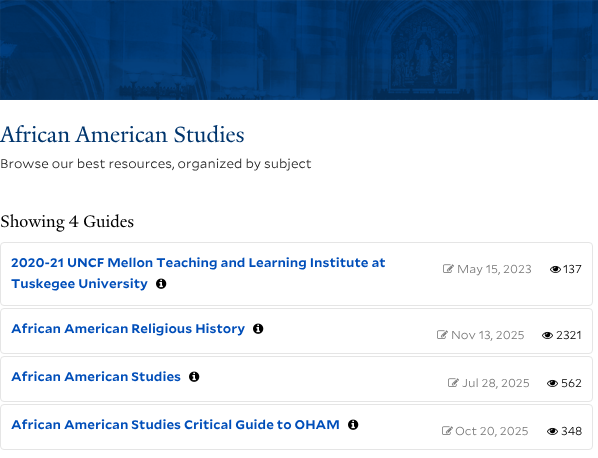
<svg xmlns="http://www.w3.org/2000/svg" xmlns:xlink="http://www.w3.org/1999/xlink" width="598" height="458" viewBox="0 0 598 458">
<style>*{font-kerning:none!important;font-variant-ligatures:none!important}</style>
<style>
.cls-1{font:24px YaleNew;fill:#00356d}
.cls-2{font:300 12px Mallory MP;fill:#222222}
.cls-3{font:18px YaleNew;fill:#000000}
.cls-4{font:bold 12px Mallory MP;fill:#004eb9}
.cls-5{font:300 11px Mallory MP;fill:#767676}
.cls-6{font:300 11px Mallory MP;fill:#000000}
</style>
<rect width="100%" height="100%" fill="#ffffff"/>
<image xlink:href="image0.png" x="0" y="0" width="598" height="100"/>
<rect fill="none" stroke="#e5e5e5" x="0.5" y="242.5" width="592" height="63" rx="3.5"/>
<image xlink:href="image1.png" x="156" y="278" width="11" height="11"/>
<image xlink:href="image2.png" x="443" y="264" width="11" height="9"/>
<image xlink:href="image3.png" x="550" y="265" width="11" height="8"/>
<rect fill="none" stroke="#e5e5e5" x="0.5" y="308.5" width="592" height="45" rx="3.5"/>
<image xlink:href="image1.png" x="253" y="323" width="11" height="11"/>
<image xlink:href="image2.png" x="437" y="330" width="11" height="9"/>
<image xlink:href="image3.png" x="542" y="331" width="11" height="8"/>
<rect fill="none" stroke="#e5e5e5" x="0.5" y="356.5" width="592" height="45" rx="3.5"/>
<image xlink:href="image1.png" x="189" y="371" width="11" height="11"/>
<image xlink:href="image2.png" x="448" y="378" width="11" height="9"/>
<image xlink:href="image3.png" x="547" y="379" width="11" height="8"/>
<rect fill="none" stroke="#e5e5e5" x="0.5" y="404.5" width="592" height="45" rx="3.5"/>
<image xlink:href="image1.png" x="348" y="419" width="11" height="11"/>
<image xlink:href="image2.png" x="442" y="426" width="11" height="9"/>
<image xlink:href="image3.png" x="547" y="427" width="11" height="8"/>
<text class="cls-1" x="0" y="142">African American Studies</text>
<text class="cls-2" x="0" y="168">Browse our best resources, organized by subject</text>
<text class="cls-3" x="0" y="227">Showing 4 Guides</text>
<text class="cls-4"><tspan x="11" y="267">2020-21 UNCF Mellon Teaching and Learning Institute at</tspan><tspan x="11" y="288">Tuskegee University</tspan></text>
<text class="cls-5" x="457" y="273">May 15, 2023</text>
<text class="cls-6" x="563" y="273">137</text>
<text class="cls-4" x="11" y="333">African American Religious History</text>
<text class="cls-5" x="451" y="339">Nov 13, 2025</text>
<text class="cls-6" x="556" y="339">2321</text>
<text class="cls-4" x="11" y="381">African American Studies</text>
<text class="cls-5" x="462" y="387">Jul 28, 2025</text>
<text class="cls-6" x="561" y="387">562</text>
<text class="cls-4" x="11" y="429">African American Studies Critical Guide to OHAM</text>
<text class="cls-5" x="455" y="435">Oct 20, 2025</text>
<text class="cls-6" x="561" y="435">348</text>
</svg>
